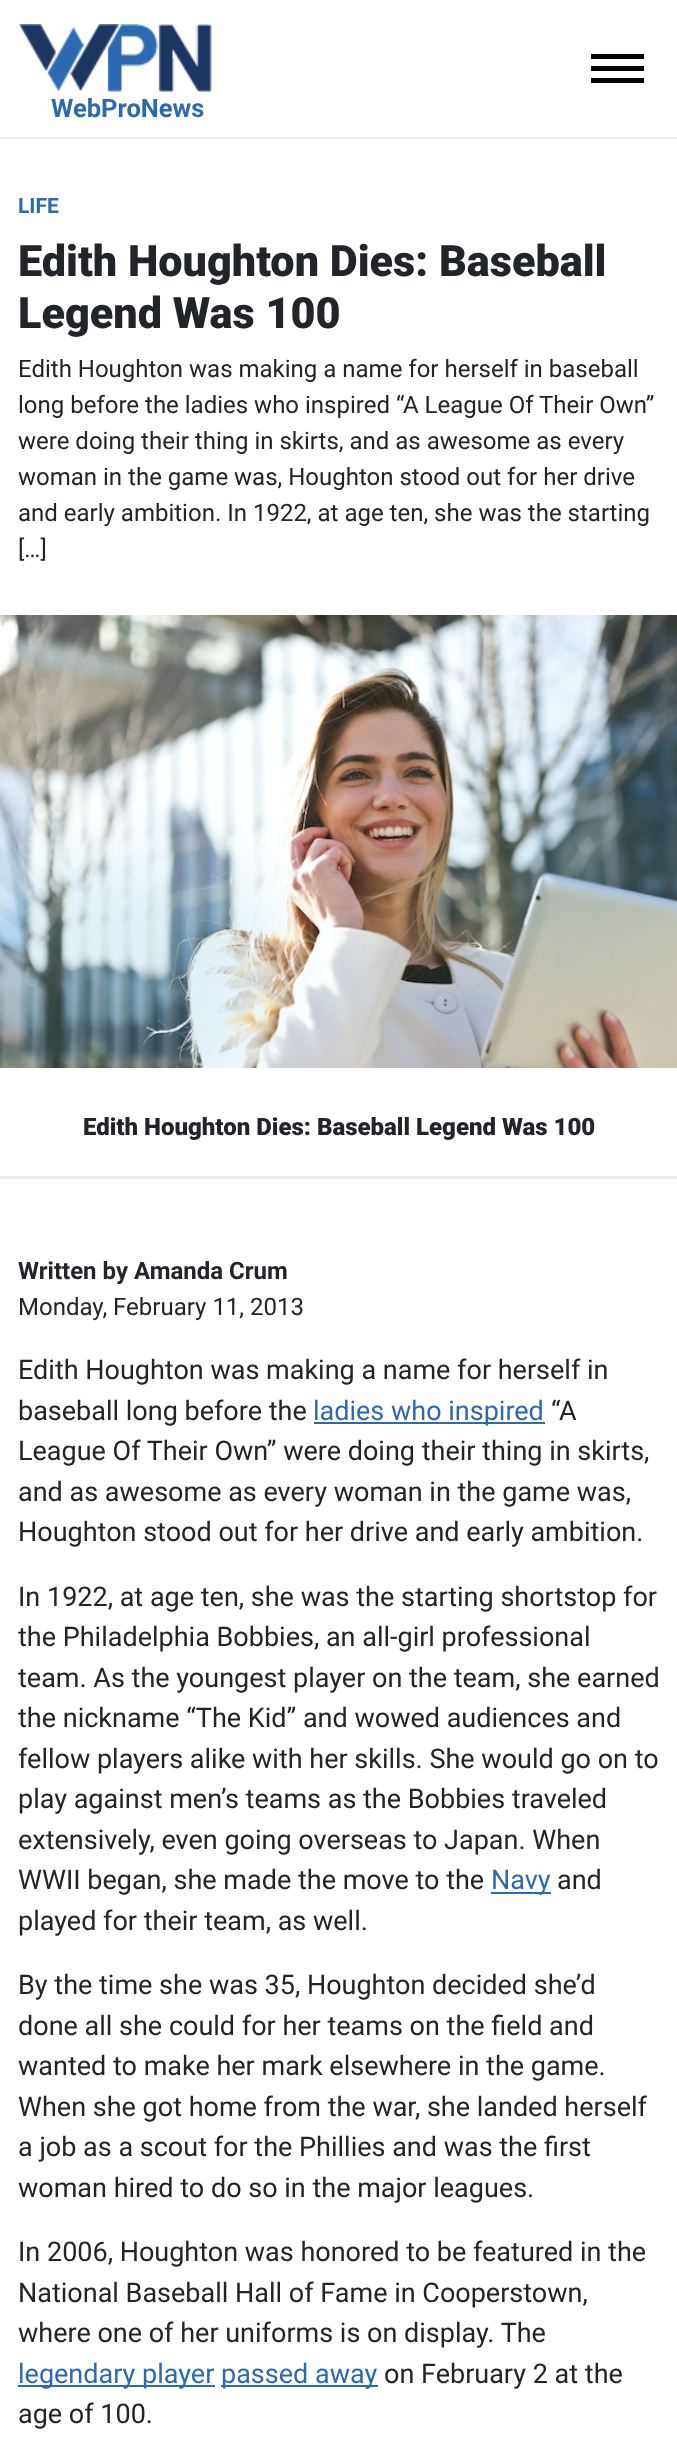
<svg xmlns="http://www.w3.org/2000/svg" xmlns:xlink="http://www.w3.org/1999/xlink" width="677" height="2453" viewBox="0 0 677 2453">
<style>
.cls-1{font:bold 25.5px Roboto;fill:#2d69b0}
.cls-2{font:bold 21px Roboto;fill:#2d69b0}
.cls-3{font:900 43.2px Roboto;fill:#212529}
.cls-4{font:24px Roboto;fill:#212529}
.cls-5{font:900 24px Roboto;fill:#212529}
.cls-6{font:bold 24px Roboto;fill:#212529}
.cls-7{font:27px Roboto;fill:#212529}
.cls-8{font:27px Roboto;fill:#2d69b0}
</style>
<rect width="100%" height="100%" fill="#ffffff"/>
<rect fill="#ececec" x="0" y="137" width="677" height="2"/>
<rect fill="#000000" x="591" y="54" width="53" height="5"/>
<rect fill="#000000" x="591" y="66" width="53" height="5"/>
<rect fill="#000000" x="591" y="78" width="53" height="5"/>
<image xlink:href="image0.png" x="19" y="24" width="193" height="68"/>
<image xlink:href="image1.png" x="0" y="615" width="677" height="453"/>
<rect fill="#ececec" x="0" y="1176" width="677" height="3"/>
<rect fill="#2d69b0" x="314" y="1422" width="231" height="2"/>
<rect fill="#2d69b0" x="491" y="1892" width="60" height="2"/>
<rect fill="#2d69b0" x="18" y="2385" width="197" height="2"/>
<rect fill="#2d69b0" x="221" y="2385" width="157" height="2"/>
<text class="cls-1" x="51" y="117">WebProNews</text>
<text class="cls-2" x="18" y="213">LIFE</text>
<text class="cls-3"><tspan x="18" y="276">Edith Houghton Dies: Baseball</tspan><tspan x="18" y="328">Legend Was 100</tspan></text>
<text class="cls-4"><tspan x="18" y="377">Edith Houghton was making a name for herself in baseball</tspan><tspan x="18" y="413">long before the ladies who inspired “A League Of Their Own”</tspan><tspan x="18" y="449">were doing their thing in skirts, and as awesome as every</tspan><tspan x="18" y="485">woman in the game was, Houghton stood out for her drive</tspan><tspan x="18" y="521">and early ambition. In 1922, at age ten, she was the starting</tspan><tspan x="18" y="557">[…]</tspan></text>
<text class="cls-5" x="83" y="1135">Edith Houghton Dies: Baseball Legend Was 100</text>
<text class="cls-6" x="18" y="1279">Written by Amanda Crum</text>
<text class="cls-4" x="18" y="1315">Monday, February 11, 2013</text>
<text class="cls-7"><tspan x="18" y="1379">Edith Houghton was making a name for herself in</tspan><tspan x="18" y="1420">baseball long before the</tspan></text>
<text class="cls-8" x="313" y="1420">ladies who inspired</text>
<text class="cls-7" x="551" y="1420">“A</text>
<text class="cls-7"><tspan x="18" y="1460">League Of Their Own” were doing their thing in skirts,</tspan><tspan x="18" y="1501">and as awesome as every woman in the game was,</tspan><tspan x="18" y="1541">Houghton stood out for her drive and early ambition.</tspan></text>
<text class="cls-7"><tspan x="18" y="1606">In 1922, at age ten, she was the starting shortstop for</tspan><tspan x="18" y="1646">the Philadelphia Bobbies, an all-girl professional</tspan><tspan x="18" y="1687">team. As the youngest player on the team, she earned</tspan><tspan x="18" y="1727">the nickname “The Kid” and wowed audiences and</tspan><tspan x="18" y="1768">fellow players alike with her skills. She would go on to</tspan><tspan x="18" y="1808">play against men’s teams as the Bobbies traveled</tspan><tspan x="18" y="1849">extensively, even going overseas to Japan. When</tspan><tspan x="18" y="1889">WWII began, she made the move to the</tspan></text>
<text class="cls-8" x="491" y="1889">Navy</text>
<text class="cls-7" x="557" y="1889">and</text>
<text class="cls-7" x="18" y="1930">played for their team, as well.</text>
<text class="cls-7"><tspan x="18" y="1994">By the time she was 35, Houghton decided she’d</tspan><tspan x="18" y="2035">done all she could for her teams on the field and</tspan><tspan x="18" y="2075">wanted to make her mark elsewhere in the game.</tspan><tspan x="18" y="2116">When she got home from the war, she landed herself</tspan><tspan x="18" y="2156">a job as a scout for the Phillies and was the first</tspan><tspan x="18" y="2197">woman hired to do so in the major leagues.</tspan></text>
<text class="cls-7"><tspan x="18" y="2261">In 2006, Houghton was honored to be featured in the</tspan><tspan x="18" y="2302">National Baseball Hall of Fame in Cooperstown,</tspan><tspan x="18" y="2342">where one of her uniforms is on display. The</tspan></text>
<text class="cls-8" x="18" y="2383">legendary player</text>
<text class="cls-8" x="221" y="2383">passed away</text>
<text class="cls-7" x="384" y="2383">on February 2 at the</text>
<text class="cls-7" x="18" y="2423">age of 100.</text>
</svg>
